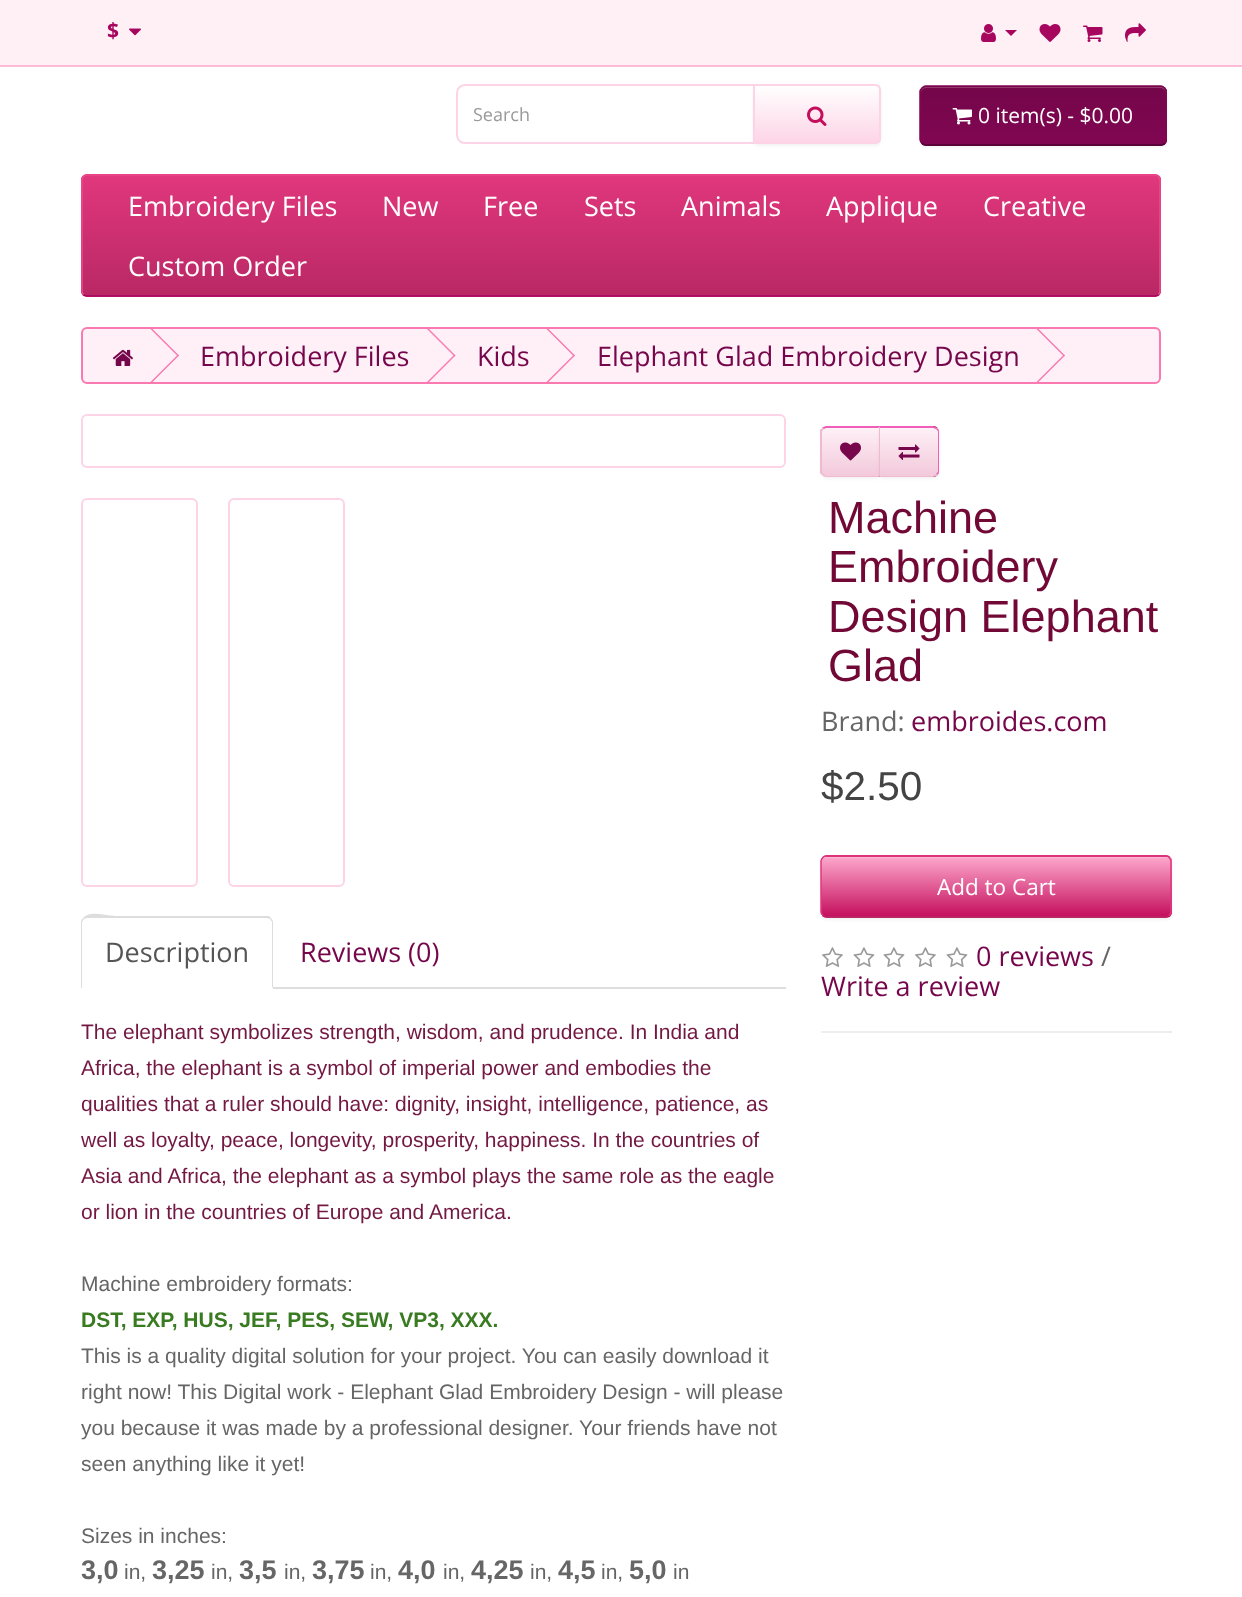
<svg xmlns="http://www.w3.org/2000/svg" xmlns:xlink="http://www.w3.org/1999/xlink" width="1242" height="1597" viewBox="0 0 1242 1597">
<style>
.cls-1{font:bold 21px Open Sans;fill:#a7065f}
.cls-2{font:18px Open Sans;fill:#999999}
.cls-3{font:21px Open Sans;fill:#ffffff}
.cls-4{font:27px Open Sans;fill:#ffffff}
.cls-5{font:27px Open Sans;fill:#76064b}
.cls-6{font:45px Liberation Sans;fill:#720835}
.cls-7{font:27px Open Sans;fill:#666666}
.cls-8{font:40.5px Liberation Sans;fill:#444444}
.cls-9{font:22.5px Open Sans;fill:#ffffff}
.cls-10{font:27px Open Sans;fill:#555555}
.cls-11{font:21px Liberation Sans;fill:#731842}
.cls-12{font:21px Liberation Sans;fill:#666666}
.cls-13{font:bold 21px Liberation Sans;fill:#397b21}
.cls-14{font:bold 27px Liberation Sans;fill:#666666}
</style>
<defs>
<clipPath id="clip1"><path d="M753 84H875C878.5 84 881 86.5 881 90V138C881 141.5 878.5 144 875 144H753Z"/></clipPath>
<linearGradient id="g1" gradientUnits="userSpaceOnUse" x1="817" y1="86" x2="817" y2="143"><stop offset="0" stop-color="#ffffff"/><stop offset="1" stop-color="#fdd4e6"/></linearGradient>
<clipPath id="clip2"><rect x="920" y="86" width="247" height="60" rx="6"/></clipPath>
<linearGradient id="g2" gradientUnits="userSpaceOnUse" x1="1043" y1="87" x2="1043" y2="144"><stop offset="0" stop-color="#74064a"/><stop offset="1" stop-color="#810652"/></linearGradient>
<clipPath id="clip3"><rect x="81" y="174" width="1080" height="123" rx="6"/></clipPath>
<linearGradient id="g3" gradientUnits="userSpaceOnUse" x1="621" y1="175" x2="621" y2="296"><stop offset="0" stop-color="#e1377d"/><stop offset="1" stop-color="#b92864"/></linearGradient>
<clipPath id="clip4"><path d="M827 426H881V477H827C823.5 477 821 474.5 821 471V432C821 428.5 823.5 426 827 426Z"/></clipPath>
<linearGradient id="g4" gradientUnits="userSpaceOnUse" x1="851" y1="428" x2="851" y2="476"><stop offset="0" stop-color="#fef0f6"/><stop offset="1" stop-color="#f3c9db"/></linearGradient>
<clipPath id="clip5"><path d="M879 426H933C936.5 426 939 428.5 939 432V471C939 474.5 936.5 477 933 477H879Z"/></clipPath>
<linearGradient id="g5" gradientUnits="userSpaceOnUse" x1="909" y1="428" x2="909" y2="476"><stop offset="0" stop-color="#fef0f6"/><stop offset="1" stop-color="#f3c9db"/></linearGradient>
<clipPath id="clip6"><rect x="821" y="855" width="351" height="63" rx="6"/></clipPath>
<linearGradient id="g6" gradientUnits="userSpaceOnUse" x1="996" y1="857" x2="996" y2="917"><stop offset="0" stop-color="#fda7cc"/><stop offset="1" stop-color="#c40e5c"/></linearGradient>
</defs>
<rect width="100%" height="100%" fill="#ffffff"/>
<rect fill="#fdbfd8" x="0" y="66" width="1242" height="1"/>
<rect fill="#fff0f6" x="0" y="0" width="1242" height="65"/>
<rect fill="#fdb9d5" x="0" y="65" width="1242" height="1"/>
<image xlink:href="image0.png" x="129" y="28" width="12" height="8"/>
<image xlink:href="image1.png" x="981" y="24" width="15" height="18"/>
<path fill="#a7065f" d="M1005 30H1017L1011 36Z"/>
<image xlink:href="image2.png" x="1039" y="24" width="22" height="18"/>
<image xlink:href="image3.png" x="1083" y="25" width="20" height="17"/>
<image xlink:href="image4.png" x="1125" y="23" width="21" height="19"/>
<path fill="none" stroke="#fdd4e6" stroke-width="2" d="M465 85H754V143H465C460.5 143 457 139.5 457 135V93C457 88.5 460.5 85 465 85Z"/>
<rect fill="#000000" fill-opacity="0.05" filter="blur(1.5px)" x="753" y="86" width="128" height="60" rx="6"/>
<g clip-path="url(#clip1)">
<rect fill="url(#g1)" x="755" y="86" width="126" height="57"/>
</g>
<path fill="none" stroke="#fdd4e6" stroke-width="2" d="M754 85H875C878 85 880 87 880 90V138C880 141 878 143 875 143H754Z"/>
<image xlink:href="image5.png" x="807" y="106" width="20" height="20"/>
<rect fill="#000000" fill-opacity="0.05" filter="blur(1.5px)" x="920" y="87" width="247" height="60" rx="6"/>
<rect fill="#640540" x="920" y="86" width="247" height="60" rx="6"/>
<g clip-path="url(#clip2)">
<rect fill="url(#g2)" x="920" y="87" width="247" height="57"/>
</g>
<path fill="#90386e" d="M926 88H1161C1163 88 1166 91 1166 93V92C1166 89 1164 87 1161 87H926C923 87 921 89 921 92V93C921 91 923 88 926 88Z"/>
<path fill="none" stroke="#570437" stroke-width="1.5" d="M1164.5 143C1163.5 144 1162.5 145 1161 145H925.5C924 145 923 144 922 143"/>
<path fill="none" stroke="#810652" stroke-width="1.5" d="M922 143C921 142 920 141 920 139.5V91.5C920 90 921 89 922 88C923 87 924 86 925.5 86H1161C1162.5 86 1163.5 87 1164.5 88C1165.5 89 1166 90 1166 91.5V139.5C1166 141 1165.5 142 1164.5 143"/>
<image xlink:href="image6.png" x="952" y="108" width="20" height="17"/>
<rect fill="#e42a76" x="81" y="174" width="1080" height="123" rx="6"/>
<g clip-path="url(#clip3)">
<rect fill="url(#g3)" x="81" y="176" width="1080" height="120"/>
</g>
<path fill="none" stroke="#a7065f" stroke-width="1.5" d="M1158.5 294.5C1157.5 295.5 1156.5 296 1155 296H87C85.5 296 84.5 295.5 83.5 294.5"/>
<path fill="none" stroke="#ec4b8d" stroke-width="1.5" d="M83.5 294.5C82.5 293.5 82 292.5 82 291V180C82 178.5 82.5 177.5 83.5 176.5C84.5 175.5 85.5 175 87 175H1155C1156.5 175 1157.5 175.5 1158.5 176.5C1159.5 177.5 1160 178.5 1160 180V291C1160 292.5 1159.5 293.5 1158.5 294.5"/>
<rect fill="#fef0f6" stroke="#f979b0" stroke-width="2" x="82" y="328" width="1078" height="55" rx="5"/>
<image xlink:href="image7.png" x="112" y="349" width="21" height="17"/>
<path fill="#f979b0" d="M150.5 329H152.5L179 355.5L178 356.5Z"/>
<path fill="#f979b0" d="M150.5 382L178 354.5L179 355.5L151.5 383Z"/>
<path fill="#f979b0" d="M427 329H429L455.5 355.5L454.5 356.5Z"/>
<path fill="#f979b0" d="M427 382L454.5 354.5L455.5 355.5L428 383Z"/>
<path fill="#f979b0" d="M546.5 329H548.5L575 355.5L574 356.5Z"/>
<path fill="#f979b0" d="M546.5 382L574 354.5L575 355.5L547.5 383Z"/>
<path fill="#f979b0" d="M1036.5 329H1038.5L1065 355.5L1064 356.5Z"/>
<path fill="#f979b0" d="M1036.5 382L1064 354.5L1065 355.5L1037.5 383Z"/>
<rect fill="#000000" fill-opacity="0.05" filter="blur(1.5px)" x="821" y="428" width="60" height="51" rx="6"/>
<g clip-path="url(#clip4)">
<rect fill="url(#g4)" x="821" y="428" width="58" height="48"/>
</g>
<path fill="#fef3f8" d="M826 429H879V428H827C824 428 822 430 822 433V434C822 431 824 429 826 429Z"/>
<path fill="#f15db9" d="M826 426C825 426 823 427 822 428L824 429L826 428H878L880 426Z"/>
<path fill="#f15db9" d="M880 426V476H879V428H878Z"/>
<path fill="#efb9cf" d="M826 477H880V476H879H826L823 474L822 475C823 476 825 477 826 477Z"/>
<path fill="#efb9cf" d="M820 430L822 428L824 429C823 430 822 431 822 432V471C822 472 822 473 823 474L822 475L820 473Z"/>
<image xlink:href="image8.png" x="840" y="442" width="21" height="19"/>
<rect fill="#000000" fill-opacity="0.05" filter="blur(1.5px)" x="879" y="428" width="60" height="51" rx="6"/>
<path fill="#672727" d="M879 426H933C936.5 426 939 428.5 939 432V471C939 474.5 936.5 477 933 477H879Z"/>
<g clip-path="url(#clip5)">
<rect fill="url(#g5)" x="880" y="428" width="59" height="48"/>
</g>
<path fill="#fef3f8" d="M881 428V429H933C935 429 938 431 938 434C938 431 936 428 933 428Z"/>
<path fill="#f15db9" d="M879 426L881 428H933L936 429L937 428C936 427 934 426 933 426Z"/>
<path fill="#f15db9" d="M939 471V432C939 430 938 429 937 428L936 429C937 430 938 431 938 432V471C938 472 937 473 936 474L937 475C938 474 939 472 939 471Z"/>
<path fill="#efb9cf" d="M933 477C934 477 936 476 937 475L936 474L933 476H880L879 477Z"/>
<path fill="#efb9cf" d="M879 426V477L880 476V428H881Z"/>
<image xlink:href="image9.png" x="898" y="444" width="22" height="17"/>
<rect fill="#000000" fill-opacity="0.05" filter="blur(1.5px)" x="821" y="857" width="351" height="63" rx="6"/>
<rect fill="#cb2f6f" x="821" y="855" width="351" height="63" rx="6"/>
<g clip-path="url(#clip6)">
<rect fill="url(#g6)" x="821" y="857" width="351" height="60"/>
</g>
<path fill="#ffffff" fill-opacity="0.2" d="M826 858H1166C1168 858 1170 860 1170 862C1170 859 1168 857 1165 857H827C824 857 822 859 822 862C822 860 824 858 826 858Z"/>
<path fill="none" stroke="#b92864" stroke-width="1.5" d="M1169 915.5C1168 916.5 1167 917 1165.5 917H826.5C825 917 824 916.5 823 915.5"/>
<path fill="none" stroke="#e1377d" stroke-width="1.5" d="M823 915.5C822 914.5 821 913.5 821 912V861C821 859.5 822 858.5 823 857.5C824 856.5 825 856 826.5 856H1165.5C1167 856 1168 856.5 1169 857.5C1170 858.5 1171 859.5 1171 861V912C1171 913.5 1170 914.5 1169 915.5"/>
<image xlink:href="image10.png" x="822" y="947" width="21" height="20"/>
<image xlink:href="image11.png" x="853" y="947" width="22" height="20"/>
<image xlink:href="image11.png" x="883" y="947" width="22" height="20"/>
<image xlink:href="image10.png" x="915" y="947" width="21" height="20"/>
<image xlink:href="image11.png" x="946" y="947" width="22" height="20"/>
<rect fill="#eeeeee" x="821" y="1031" width="351" height="2"/>
<rect fill="none" stroke="#fdd4e6" stroke-width="2" x="82" y="415" width="703" height="52" rx="5"/>
<rect fill="none" stroke="#fdd4e6" stroke-width="2" x="82" y="499" width="115" height="387" rx="5"/>
<rect fill="none" stroke="#fdd4e6" stroke-width="2" x="229" y="499" width="115" height="387" rx="5"/>
<rect fill="#dddddd" x="273" y="987" width="513" height="2"/>
<path fill="#dddddd" d="M87 918L84 919L83 918C90 910 104 916 116 916H269L271 918L270 919L267 918Z"/>
<path fill="#dddddd" d="M273 988V922C273 921 272 919 271 918L270 919L272 922V987Z"/>
<path fill="#dddddd" d="M81 922V988H82V987V922L84 919L83 918C82 919 81 921 81 922Z"/>
<text class="cls-1" x="107" y="38">$</text>
<text class="cls-2" x="473" y="121">Search</text>
<text class="cls-3" x="978" y="123">0 item(s) - $0.00</text>
<text class="cls-4" x="128" y="216">Embroidery Files</text>
<text class="cls-4" x="382" y="216">New</text>
<text class="cls-4" x="483" y="216">Free</text>
<text class="cls-4" x="584" y="216">Sets</text>
<text class="cls-4" x="681" y="216">Animals</text>
<text class="cls-4" x="826" y="216">Applique</text>
<text class="cls-4" x="983" y="216">Creative</text>
<text class="cls-4" x="128" y="276">Custom Order</text>
<text class="cls-5" x="200" y="366">Embroidery Files</text>
<text class="cls-5" x="477" y="366">Kids</text>
<text class="cls-5" x="597" y="366">Elephant Glad Embroidery Design</text>
<text class="cls-6"><tspan x="828" y="533">Machine</tspan><tspan x="828" y="582">Embroidery</tspan><tspan x="828" y="632">Design Elephant</tspan><tspan x="828" y="681">Glad</tspan></text>
<text class="cls-7" x="821" y="731">Brand:</text>
<text class="cls-5" x="911" y="731">embroides.com</text>
<text class="cls-8" x="821" y="800">$2.50</text>
<text class="cls-9" x="937" y="895">Add to Cart</text>
<text class="cls-5" x="976" y="966">0 reviews</text>
<text class="cls-7" x="1101" y="966">/</text>
<text class="cls-5" x="821" y="996">Write a review</text>
<text class="cls-10" x="105" y="962">Description</text>
<text class="cls-5" x="300" y="962">Reviews (0)</text>
<text class="cls-11"><tspan x="81" y="1039">The elephant symbolizes strength, wisdom, and prudence. In India and</tspan><tspan x="81" y="1075">Africa, the elephant is a symbol of imperial power and embodies the</tspan><tspan x="81" y="1111">qualities that a ruler should have: dignity, insight, intelligence, patience, as</tspan><tspan x="81" y="1147">well as loyalty, peace, longevity, prosperity, happiness. In the countries of</tspan><tspan x="81" y="1183">Asia and Africa, the elephant as a symbol plays the same role as the eagle</tspan><tspan x="81" y="1219">or lion in the countries of Europe and America.</tspan></text>
<text class="cls-12" x="81" y="1291">Machine embroidery formats:</text>
<text class="cls-13" x="81" y="1327">DST, EXP, HUS, JEF, PES, SEW, VP3, XXX.</text>
<text class="cls-12"><tspan x="81" y="1363">This is a quality digital solution for your project. You can easily download it</tspan><tspan x="81" y="1399">right now! This Digital work - Elephant Glad Embroidery Design - will please</tspan><tspan x="81" y="1435">you because it was made by a professional designer. Your friends have not</tspan><tspan x="81" y="1471">seen anything like it yet!</tspan></text>
<text class="cls-12" x="81" y="1543">Sizes in inches:</text>
<text class="cls-14" x="81" y="1579">3,0</text>
<text class="cls-12" x="124" y="1579">in,</text>
<text class="cls-14" x="152" y="1579">3,25</text>
<text class="cls-12" x="211" y="1579">in,</text>
<text class="cls-14" x="239" y="1579">3,5</text>
<text class="cls-12" x="284" y="1579">in,</text>
<text class="cls-14" x="312" y="1579">3,75</text>
<text class="cls-12" x="370" y="1579">in,</text>
<text class="cls-14" x="398" y="1579">4,0</text>
<text class="cls-12" x="443" y="1579">in,</text>
<text class="cls-14" x="471" y="1579">4,25</text>
<text class="cls-12" x="530" y="1579">in,</text>
<text class="cls-14" x="558" y="1579">4,5</text>
<text class="cls-12" x="601" y="1579">in,</text>
<text class="cls-14" x="629" y="1579">5,0</text>
<text class="cls-12" x="673" y="1579">in</text>
</svg>
